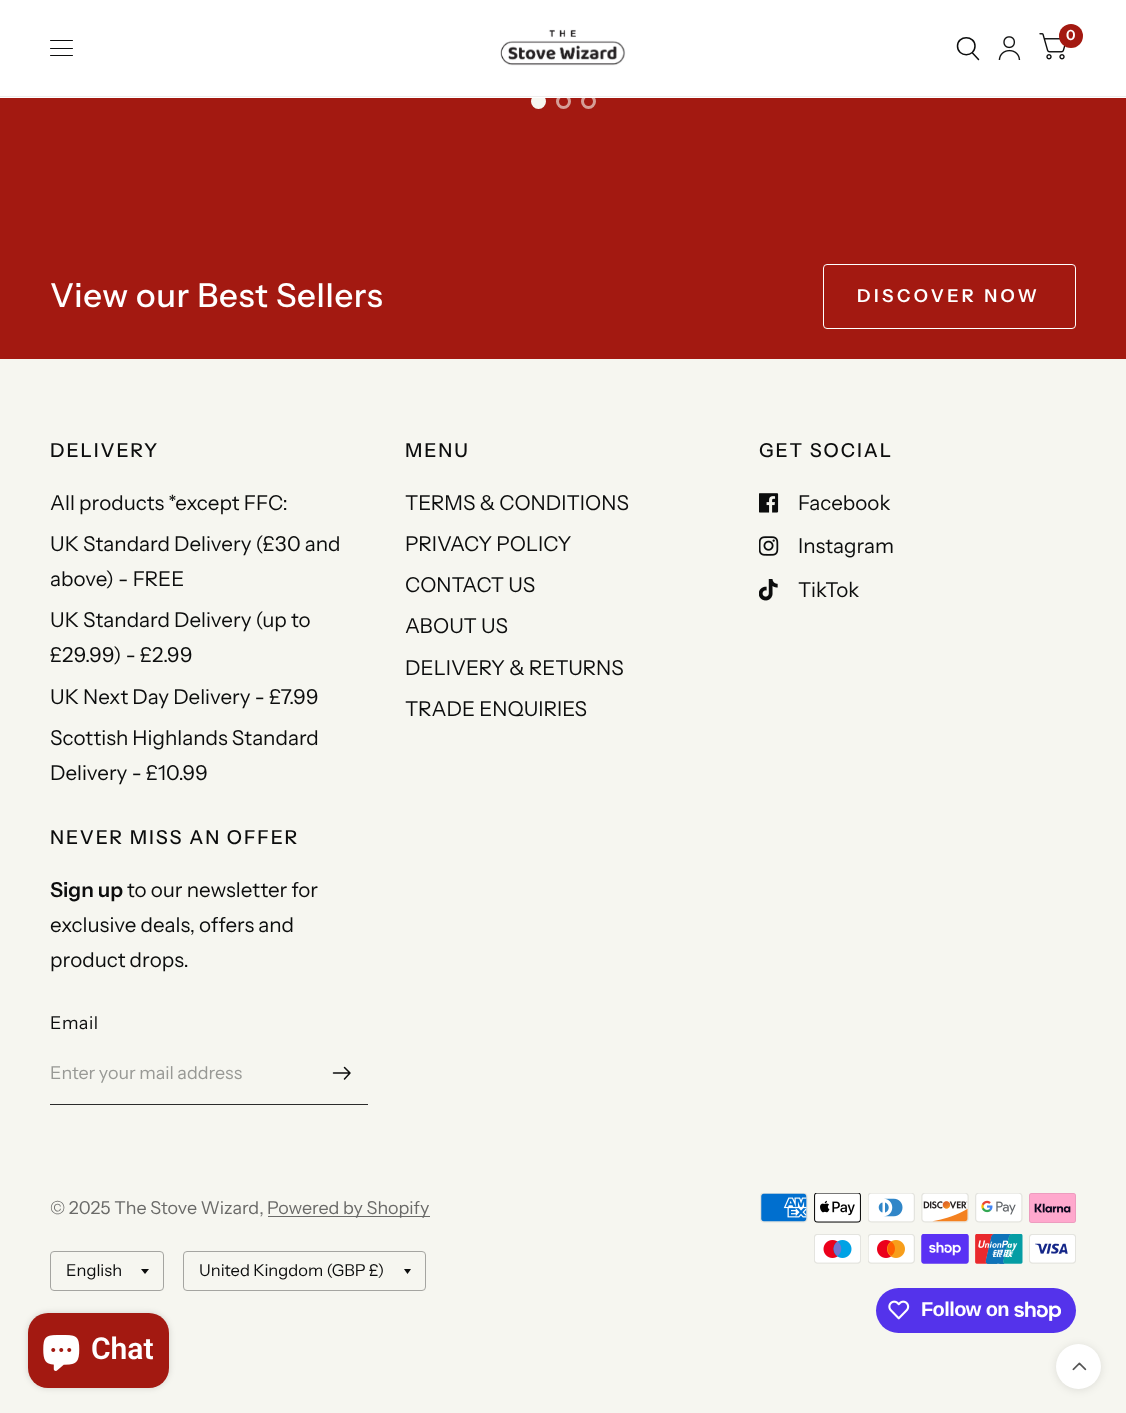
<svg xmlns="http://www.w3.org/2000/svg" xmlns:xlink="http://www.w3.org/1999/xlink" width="1126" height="1413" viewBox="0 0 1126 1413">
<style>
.cls-1{font:600 14px Instrument Sans;fill:#ffffff}
.cls-2{font:500 33px Instrument Sans;letter-spacing:0.7px;fill:#ffffff}
.cls-3{font:600 17.9px Instrument Sans;letter-spacing:3.5px;fill:#ffffff}
.cls-4{font:500 19.25px Instrument Sans;letter-spacing:1.9px;fill:#0c0d0d}
.cls-5{font:20.6px Instrument Sans;fill:#0c0d0d}
.cls-6{font:600 20.6px Instrument Sans;fill:#0c0d0d}
.cls-7{font:17.9px Instrument Sans;letter-spacing:0.5px;fill:#0c0d0d}
.cls-8{font:17.9px Instrument Sans;fill:#989995}
.cls-9{font:17.9px Instrument Sans;fill:#6a6a68}
.cls-10{font:16.5px Instrument Sans;fill:#0c0d0d}
.cls-11{font:bold 20px Liberation Sans;letter-spacing:-0.6px;fill:#ffffff}
.cls-12{font:600 30px Roboto;fill:#ffffff}
</style>
<rect width="100%" height="100%" fill="#a31911"/>
<circle fill="#f6f6f0" stroke="#f6f6f0" stroke-width="3" cx="538.5" cy="101.5" r="6"/>
<circle fill="none" stroke="#d59e97" stroke-width="3" cx="563.5" cy="101.5" r="6"/>
<circle fill="none" stroke="#d59e97" stroke-width="3" cx="588.5" cy="101.5" r="6"/>
<rect fill="#ffffff" x="0" y="0" width="1126" height="98"/>
<rect fill="#eeeeee" x="0" y="96" width="1126" height="1"/>
<image xlink:href="image0.png" x="500" y="29" width="126" height="37"/>
<path fill="none" stroke="#0c0d0d" stroke-width="1.5" stroke-linecap="round" stroke-linejoin="round" d="M972.5 53L978.5 59.5M975 46C975 57.5 957.5 57.5 957.5 46C957.5 35 975 35 975 46Z"/>
<image xlink:href="image1.png" x="998" y="36" width="23" height="24"/>
<image xlink:href="image2.png" x="1039" y="33" width="27" height="27"/>
<circle fill="#a31911" cx="1071" cy="36" r="12"/>
<rect fill="#0c0d0d" x="50" y="40" width="23" height="1" rx="0.5"/>
<rect fill="#0c0d0d" x="50" y="48" width="23" height="1" rx="0.5"/>
<rect fill="#0c0d0d" x="50" y="55" width="23" height="1" rx="0.5"/>
<rect fill="none" stroke="#ffffff" x="823.5" y="264.5" width="252" height="64" rx="3.5"/>
<rect fill="#f6f6f0" x="0" y="359" width="1126" height="1054"/>
<image xlink:href="image3.png" x="759" y="493" width="20" height="20"/>
<image xlink:href="image4.png" x="759" y="536" width="20" height="20"/>
<image xlink:href="image5.png" x="759" y="579" width="19" height="22"/>
<rect fill="#2b2b2b" x="50" y="1104" width="318" height="1"/>
<path fill="none" stroke="#0c0d0d" stroke-width="1.5" stroke-linecap="round" stroke-linejoin="round" d="M333.5 1073H348.5M344.5 1067.5L350 1073L344.5 1079"/>
<rect fill="#6a6a68" x="268" y="1216" width="162" height="1"/>
<rect fill="none" stroke="#a5a5a1" x="50.5" y="1251.5" width="113" height="39" rx="3.5"/>
<path fill="#0c0d0d" d="M141 1269H149L145 1274Z"/>
<rect fill="none" stroke="#a5a5a1" x="183.5" y="1251.5" width="242" height="39" rx="3.5"/>
<path fill="#0c0d0d" d="M404 1269H411L407.5 1274Z"/>
<image xlink:href="image6.png" x="760" y="1193" width="48" height="30"/>
<image xlink:href="image7.png" x="814" y="1193" width="47" height="30"/>
<image xlink:href="image8.png" x="868" y="1193" width="47" height="30"/>
<image xlink:href="image9.png" x="921" y="1193" width="48" height="30"/>
<image xlink:href="image10.png" x="975" y="1193" width="48" height="30"/>
<image xlink:href="image11.png" x="1029" y="1193" width="47" height="30"/>
<image xlink:href="image12.png" x="814" y="1234" width="47" height="30"/>
<image xlink:href="image13.png" x="868" y="1234" width="47" height="30"/>
<image xlink:href="image14.png" x="921" y="1234" width="48" height="30"/>
<image xlink:href="image15.png" x="975" y="1234" width="48" height="30"/>
<image xlink:href="image16.png" x="1029" y="1234" width="47" height="30"/>
<rect fill="#5433eb" x="876" y="1288" width="200" height="45" rx="22.5"/>
<image xlink:href="image17.png" x="888" y="1300" width="22" height="20"/>
<image xlink:href="image18.png" x="1014" y="1301" width="47" height="20"/>
<rect fill="#000000" fill-opacity="0.15" filter="blur(3px)" x="28" y="1313" width="141" height="75" rx="20"/>
<rect fill="#a31911" x="28" y="1313" width="141" height="75" rx="20"/>
<image xlink:href="image19.png" x="43" y="1335" width="37" height="36"/>
<rect fill="#000000" fill-opacity="0.1" filter="blur(4px)" x="1056" y="1345" width="45" height="45" rx="22.5"/>
<circle fill="#ffffff" cx="1078.5" cy="1366.5" r="22.5"/>
<image xlink:href="image20.png" x="1072" y="1362" width="15" height="9"/>
<text class="cls-1" x="1066" y="40">0</text>
<text class="cls-2" x="50" y="307">View our Best Sellers</text>
<text class="cls-3" x="857" y="302">DISCOVER NOW</text>
<text class="cls-4" x="50" y="457">DELIVERY</text>
<text class="cls-5"><tspan x="50" y="510">All products *except FFC:</tspan><tspan x="50" y="551">UK Standard Delivery (£30 and</tspan><tspan x="50" y="586">above) - FREE</tspan><tspan x="50" y="627">UK Standard Delivery (up to</tspan><tspan x="50" y="662">£29.99) - £2.99</tspan></text>
<text class="cls-5"><tspan x="50" y="704">UK Next Day Delivery - £7.99</tspan><tspan x="50" y="745">Scottish Highlands Standard</tspan><tspan x="50" y="780">Delivery - £10.99</tspan></text>
<text class="cls-4" x="405" y="457">MENU</text>
<text class="cls-5"><tspan x="405" y="510">TERMS &amp; CONDITIONS</tspan><tspan x="405" y="551">PRIVACY POLICY</tspan><tspan x="405" y="592">CONTACT US</tspan><tspan x="405" y="633">ABOUT US</tspan></text>
<text class="cls-5"><tspan x="405" y="675">DELIVERY &amp; RETURNS</tspan><tspan x="405" y="716">TRADE ENQUIRIES</tspan></text>
<text class="cls-4" x="759" y="457">GET SOCIAL</text>
<text class="cls-5" x="798" y="510">Facebook</text>
<text class="cls-5" x="798" y="553">Instagram</text>
<text class="cls-5" x="798" y="597">TikTok</text>
<text class="cls-4" x="50" y="844">NEVER MISS AN OFFER</text>
<text class="cls-6" x="50" y="897">Sign up</text>
<text class="cls-5" x="127" y="897">to our newsletter for</text>
<text class="cls-5"><tspan x="50" y="932">exclusive deals, offers and</tspan><tspan x="50" y="967">product drops.</tspan></text>
<text class="cls-7" x="50" y="1029">Email</text>
<text class="cls-8" x="50" y="1079">Enter your mail address</text>
<text class="cls-9" x="50" y="1214">© 2025 The Stove Wizard,</text>
<text class="cls-9" x="267" y="1214">Powered by Shopify</text>
<text class="cls-10" x="66" y="1276">English</text>
<text class="cls-10" x="199" y="1276">United Kingdom (GBP £)</text>
<text class="cls-11" x="921" y="1316">Follow on</text>
<text class="cls-12" x="91" y="1359">Chat</text>
</svg>
